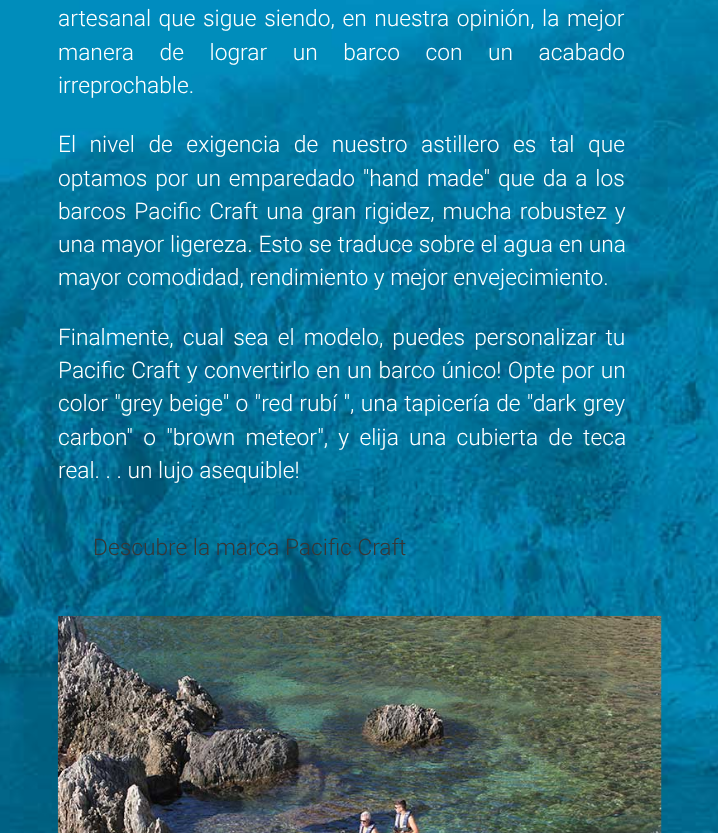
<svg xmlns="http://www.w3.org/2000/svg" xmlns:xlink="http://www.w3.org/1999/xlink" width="718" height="833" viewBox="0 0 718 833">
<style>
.cls-1{font:300 22.75px Roboto;fill:#ffffff}
.cls-2{font:300 22.75px Roboto;fill:#373737}
</style>
<rect width="100%" height="100%" fill="#ffffff"/>
<image xlink:href="image0.png" x="0" y="0" width="718" height="833"/>
<image xlink:href="image1.png" x="57" y="615" width="605" height="218"/>
<text class="cls-1"><tspan x="58" y="26" word-spacing="2">artesanal que sigue siendo, en nuestra opinión, la mejor</tspan><tspan x="58" y="60" word-spacing="20">manera de lograr un barco con un acabado</tspan><tspan x="58" y="93">irreprochable.</tspan></text>
<text class="cls-1"><tspan x="58" y="152" word-spacing="8">El nivel de exigencia de nuestro astillero es tal que</tspan><tspan x="58" y="186" word-spacing="2.25">optamos por un emparedado "hand made" que da a los</tspan><tspan x="58" y="219" word-spacing="2.5">barcos Pacific Craft una gran rigidez, mucha robustez y</tspan><tspan x="58" y="252" word-spacing="0.25">una mayor ligereza. Esto se traduce sobre el agua en una</tspan><tspan x="58" y="285">mayor comodidad, rendimiento y mejor envejecimiento.</tspan></text>
<text class="cls-1"><tspan x="58" y="345" word-spacing="3.5">Finalmente, cual sea el modelo, puedes personalizar tu</tspan><tspan x="58" y="378" word-spacing="0.9">Pacific Craft y convertirlo en un barco único! Opte por un</tspan><tspan x="58" y="411" word-spacing="0.75">color "grey beige" o "red rubí ", una tapicería de "dark grey</tspan><tspan x="58" y="445" word-spacing="4.75">carbon" o "brown meteor", y elija una cubierta de teca</tspan><tspan x="58" y="478">real. . . un lujo asequible!</tspan></text>
<text class="cls-2" x="93" y="555">Descubre la marca Pacific Craft</text>
</svg>
